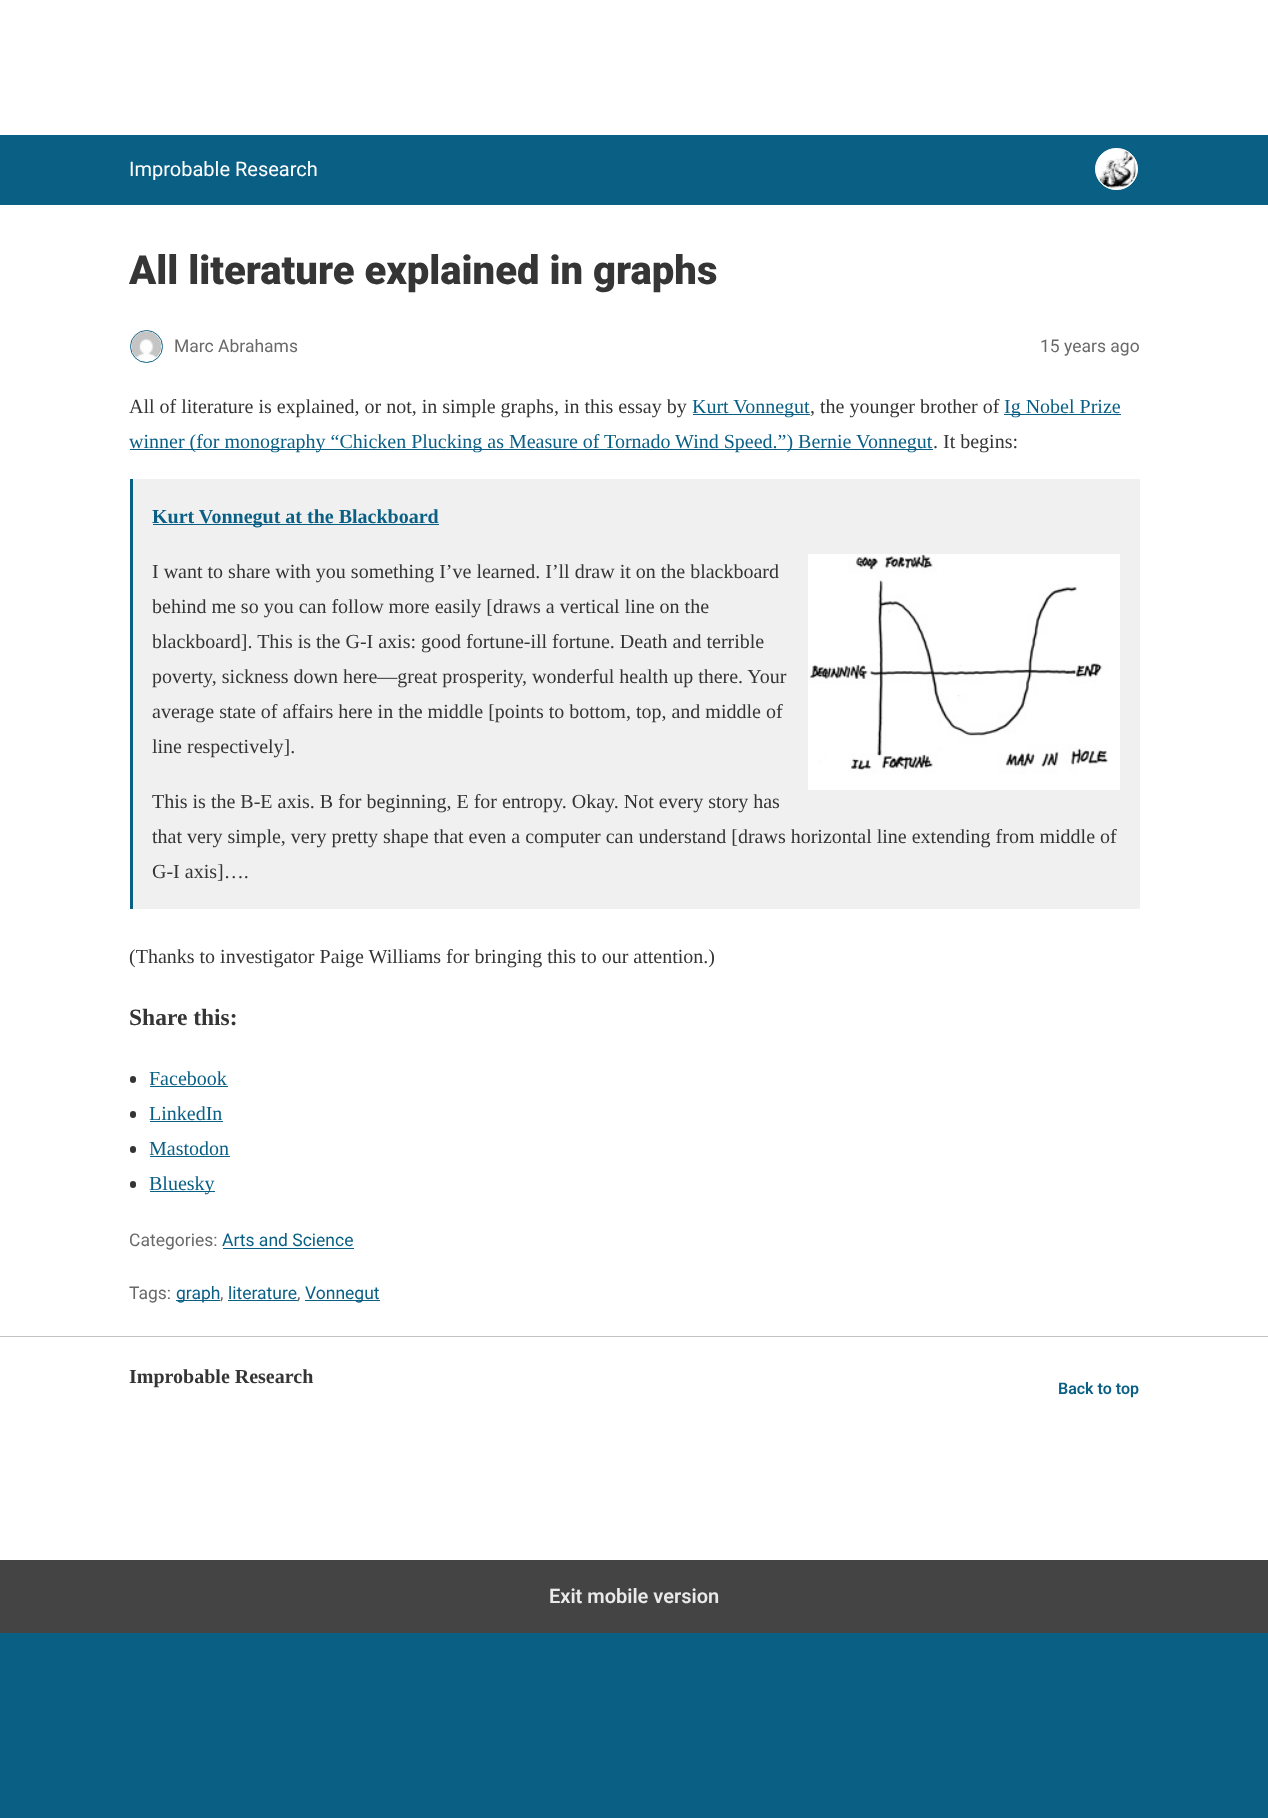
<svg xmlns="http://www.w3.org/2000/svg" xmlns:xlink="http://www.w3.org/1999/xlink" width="1268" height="1818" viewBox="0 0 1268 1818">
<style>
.cls-1{font:20px Roboto;fill:#ffffff}
.cls-2{font:900 40px Roboto;fill:#353535}
.cls-3{font:17.5px Roboto;fill:#696969}
.cls-4{font:20px Liberation Serif;fill:#353535}
.cls-5{font:20px Liberation Serif;fill:#0a5f85}
.cls-6{font:bold 20px Liberation Serif;fill:#0a5f85}
.cls-7{font:bold 23.5px Liberation Serif;fill:#353535}
.cls-8{font:17.5px Roboto;fill:#0a5f85}
.cls-9{font:bold 20px Liberation Serif;fill:#353535}
.cls-10{font:600 16px Roboto;fill:#0a5f85}
.cls-11{font:600 20px Roboto;fill:#eaeaea}
</style>
<rect width="100%" height="100%" fill="#0a5f85"/>
<rect fill="#ffffff" x="0" y="0" width="1268" height="1560"/>
<rect fill="#0a5f85" x="0" y="135" width="1268" height="70"/>
<rect fill="#ffffff" stroke="#ffffff" x="1095.5" y="148.5" width="42" height="41" rx="20.5"/>
<image xlink:href="image0.png" x="1098" y="150" width="38" height="38"/>
<circle fill="none" stroke="#0a5f85" cx="146.5" cy="346.5" r="16"/>
<image xlink:href="image1.png" x="131" y="331" width="30" height="29"/>
<rect fill="#0a5f85" x="693" y="414" width="117" height="1"/>
<rect fill="#0a5f85" x="1004" y="414" width="117" height="1"/>
<rect fill="#0a5f85" x="130" y="449" width="803" height="1"/>
<rect fill="#f0f0f0" x="133" y="479" width="1007" height="430"/>
<rect fill="#0a5f85" x="130" y="479" width="3" height="430"/>
<rect fill="#0a5f85" x="153" y="524" width="286" height="1"/>
<image xlink:href="image2.png" x="808" y="554" width="312" height="236"/>
<rect fill="#353535" x="130" y="1076" width="6" height="7" rx="3"/>
<rect fill="#0a5f85" x="150" y="1086" width="78" height="1"/>
<rect fill="#353535" x="130" y="1111" width="6" height="7" rx="3"/>
<rect fill="#0a5f85" x="150" y="1121" width="73" height="1"/>
<rect fill="#353535" x="130" y="1146" width="6" height="7" rx="3"/>
<rect fill="#0a5f85" x="150" y="1156" width="80" height="1"/>
<rect fill="#353535" x="130" y="1181" width="6" height="7" rx="3"/>
<rect fill="#0a5f85" x="150" y="1191" width="65" height="1"/>
<rect fill="#0a5f85" x="223" y="1248" width="131" height="1"/>
<rect fill="#0a5f85" x="176" y="1300" width="44" height="1"/>
<rect fill="#0a5f85" x="228" y="1300" width="70" height="1"/>
<rect fill="#0a5f85" x="305" y="1300" width="75" height="1"/>
<rect fill="#c2c2c2" x="0" y="1336" width="1268" height="1"/>
<rect fill="#444444" x="0" y="1560" width="1268" height="73"/>
<text class="cls-1" x="129" y="176">Improbable Research</text>
<text class="cls-2" x="129" y="284">All literature explained in graphs</text>
<text class="cls-3" x="174" y="352">Marc Abrahams</text>
<text class="cls-3" x="1040" y="352">15 years ago</text>
<text class="cls-4" x="129" y="413">All of literature is explained, or not, in simple graphs, in this essay by</text>
<text class="cls-5" x="692" y="413">Kurt Vonnegut</text>
<text class="cls-4" x="810" y="413">, the younger brother of</text>
<text class="cls-5" x="1004" y="413">Ig Nobel Prize</text>
<text class="cls-5" x="129" y="448">winner (for monography “Chicken Plucking as Measure of Tornado Wind Speed.”) Bernie Vonnegut</text>
<text class="cls-4" x="933" y="448">. It begins:</text>
<text class="cls-6" x="152" y="523">Kurt Vonnegut at the Blackboard</text>
<text class="cls-4"><tspan x="152" y="578">I want to share with you something I’ve learned. I’ll draw it on the blackboard</tspan><tspan x="152" y="613">behind me so you can follow more easily [draws a vertical line on the</tspan><tspan x="152" y="648">blackboard]. This is the G-I axis: good fortune-ill fortune. Death and terrible</tspan><tspan x="152" y="683">poverty, sickness down here—great prosperity, wonderful health up there. Your</tspan><tspan x="152" y="718">average state of affairs here in the middle [points to bottom, top, and middle of</tspan><tspan x="152" y="753">line respectively].</tspan></text>
<text class="cls-4"><tspan x="152" y="808">This is the B-E axis. B for beginning, E for entropy. Okay. Not every story has</tspan><tspan x="152" y="843">that very simple, very pretty shape that even a computer can understand [draws horizontal line extending from middle of</tspan><tspan x="152" y="878">G-I axis]….</tspan></text>
<text class="cls-4" x="129" y="963">(Thanks to investigator Paige Williams for bringing this to our attention.)</text>
<text class="cls-7" x="129" y="1025">Share this:</text>
<text class="cls-5"><tspan x="149" y="1085">Facebook</tspan><tspan x="149" y="1120">LinkedIn</tspan><tspan x="149" y="1155">Mastodon</tspan><tspan x="149" y="1190">Bluesky</tspan></text>
<text class="cls-3" x="129" y="1246">Categories:</text>
<text class="cls-8" x="222" y="1246">Arts and Science</text>
<text class="cls-3" x="129" y="1299">Tags:</text>
<text class="cls-8" x="176" y="1299">graph</text>
<text class="cls-3" x="220" y="1299">,</text>
<text class="cls-8" x="228" y="1299">literature</text>
<text class="cls-3" x="297" y="1299">,</text>
<text class="cls-8" x="305" y="1299">Vonnegut</text>
<text class="cls-9" x="129" y="1383">Improbable Research</text>
<text class="cls-10" x="1058" y="1394">Back to top</text>
<text class="cls-11" x="549" y="1603">Exit mobile version</text>
</svg>
